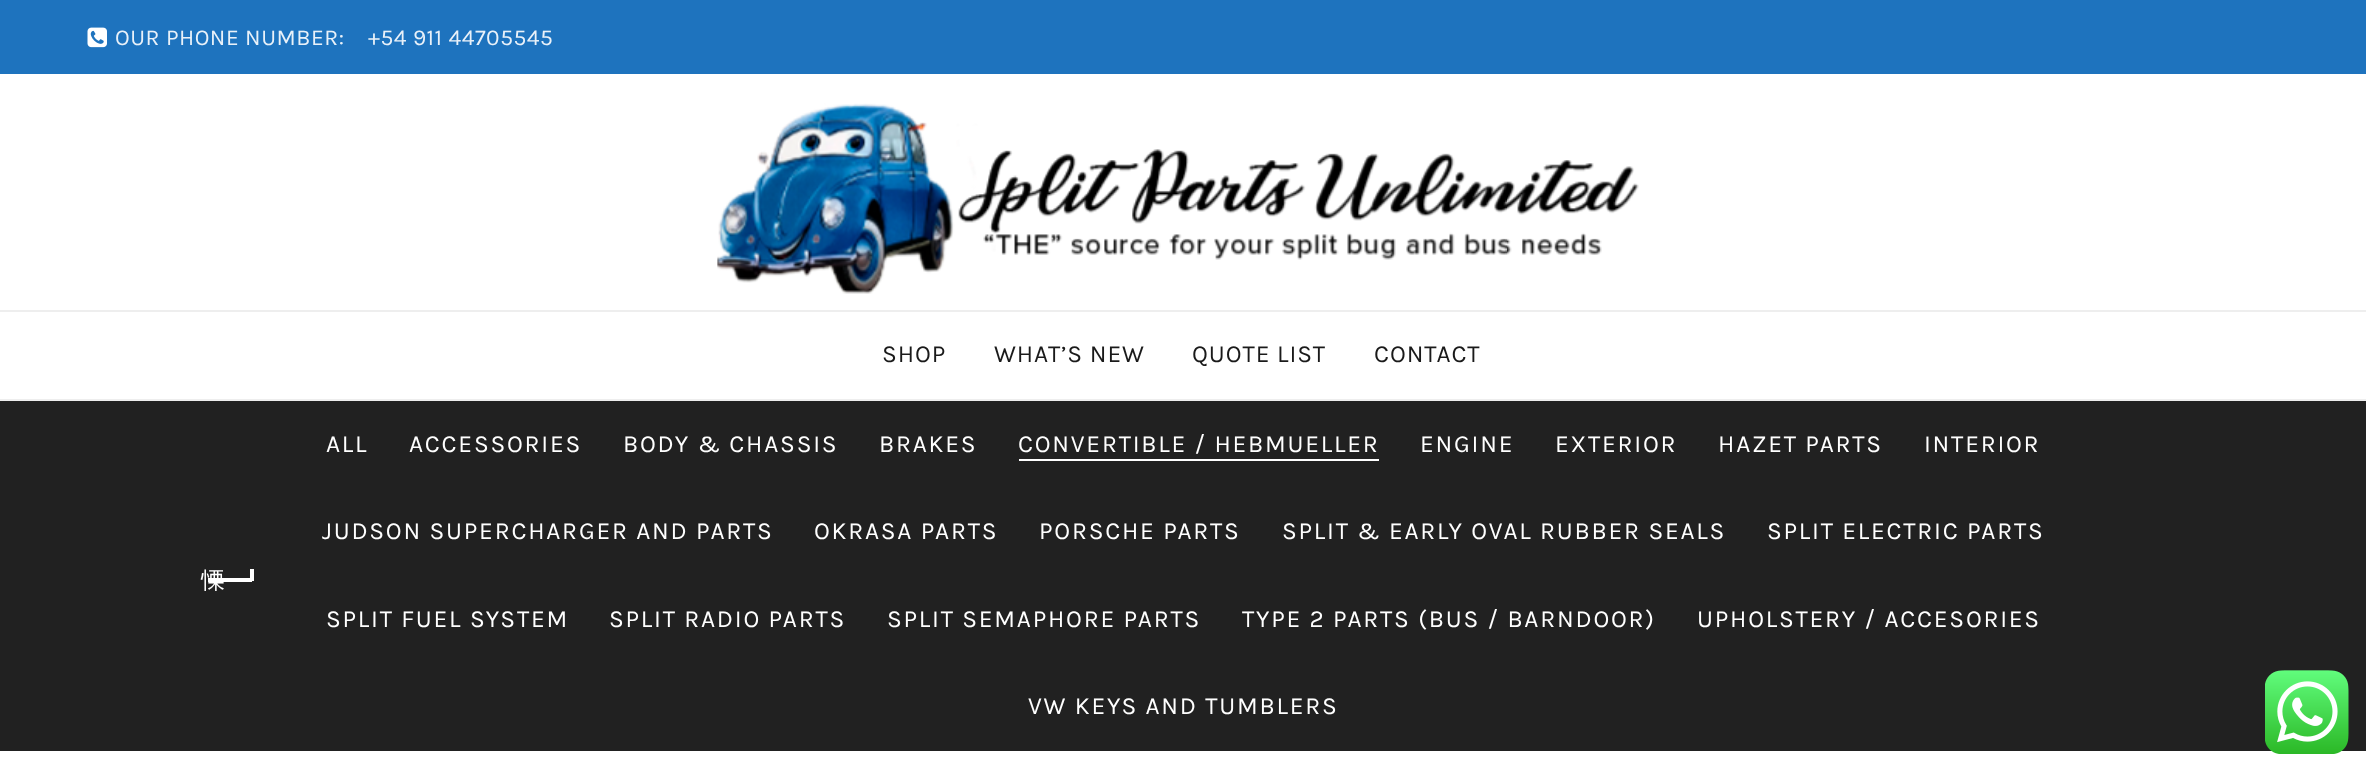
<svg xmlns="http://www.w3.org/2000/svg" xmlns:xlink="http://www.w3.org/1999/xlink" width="2366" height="771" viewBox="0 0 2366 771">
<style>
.cls-1{font:22.75px Karla;letter-spacing:0.5px;fill:#e9f1f9}
.cls-2{font:24.5px Karla;letter-spacing:0.9px;fill:#1a1a1a}
.cls-3{font:500 24.5px WenQuanYi Zen Hei;fill:#ffffff}
.cls-4{font:24.5px Karla;letter-spacing:1.75px;fill:#ffffff}
</style>
<rect width="100%" height="100%" fill="#ffffff"/>
<rect fill="#1e73be" x="0" y="0" width="2366" height="74"/>
<image xlink:href="image0.png" x="87" y="27" width="20" height="21"/>
<image xlink:href="image1.png" x="717" y="103" width="922" height="191"/>
<rect fill="#eeeeee" x="0" y="310" width="2366" height="2"/>
<rect fill="#eeeeee" x="0" y="399" width="2366" height="2"/>
<rect fill="#212121" x="0" y="401" width="2366" height="350"/>
<rect fill="#ffffff" x="208" y="578" width="44" height="4"/>
<rect fill="#ffffff" x="250" y="569" width="4" height="12"/>
<rect fill="#ffffff" x="1019" y="459" width="360" height="2"/>
<image xlink:href="image2.png" x="2265" y="670" width="84" height="84"/>
<text class="cls-1" x="115" y="45">OUR PHONE NUMBER:</text>
<text class="cls-1" x="368" y="45">+54 911 44705545</text>
<text class="cls-2" x="882" y="362">SHOP</text>
<text class="cls-2" x="994" y="362">WHAT’S NEW</text>
<text class="cls-2" x="1192" y="362">QUOTE LIST</text>
<text class="cls-2" x="1374" y="362">CONTACT</text>
<text class="cls-3" x="200" y="588">慄</text>
<text class="cls-4" x="326" y="452">ALL</text>
<text class="cls-4" x="409" y="452">ACCESSORIES</text>
<text class="cls-4" x="623" y="452">BODY &amp; CHASSIS</text>
<text class="cls-4" x="879" y="452">BRAKES</text>
<text class="cls-4" x="1018" y="452">CONVERTIBLE / HEBMUELLER</text>
<text class="cls-4" x="1420" y="452">ENGINE</text>
<text class="cls-4" x="1555" y="452">EXTERIOR</text>
<text class="cls-4" x="1718" y="452">HAZET PARTS</text>
<text class="cls-4" x="1924" y="452">INTERIOR</text>
<text class="cls-4" x="322" y="539">JUDSON SUPERCHARGER AND PARTS</text>
<text class="cls-4" x="814" y="539">OKRASA PARTS</text>
<text class="cls-4" x="1039" y="539">PORSCHE PARTS</text>
<text class="cls-4" x="1282" y="539">SPLIT &amp; EARLY OVAL RUBBER SEALS</text>
<text class="cls-4" x="1767" y="539">SPLIT ELECTRIC PARTS</text>
<text class="cls-4" x="326" y="627">SPLIT FUEL SYSTEM</text>
<text class="cls-4" x="609" y="627">SPLIT RADIO PARTS</text>
<text class="cls-4" x="887" y="627">SPLIT SEMAPHORE PARTS</text>
<text class="cls-4" x="1242" y="627">TYPE 2 PARTS (BUS / BARNDOOR)</text>
<text class="cls-4" x="1697" y="627">UPHOLSTERY / ACCESORIES</text>
<text class="cls-4" x="1028" y="714">VW KEYS AND TUMBLERS</text>
</svg>
